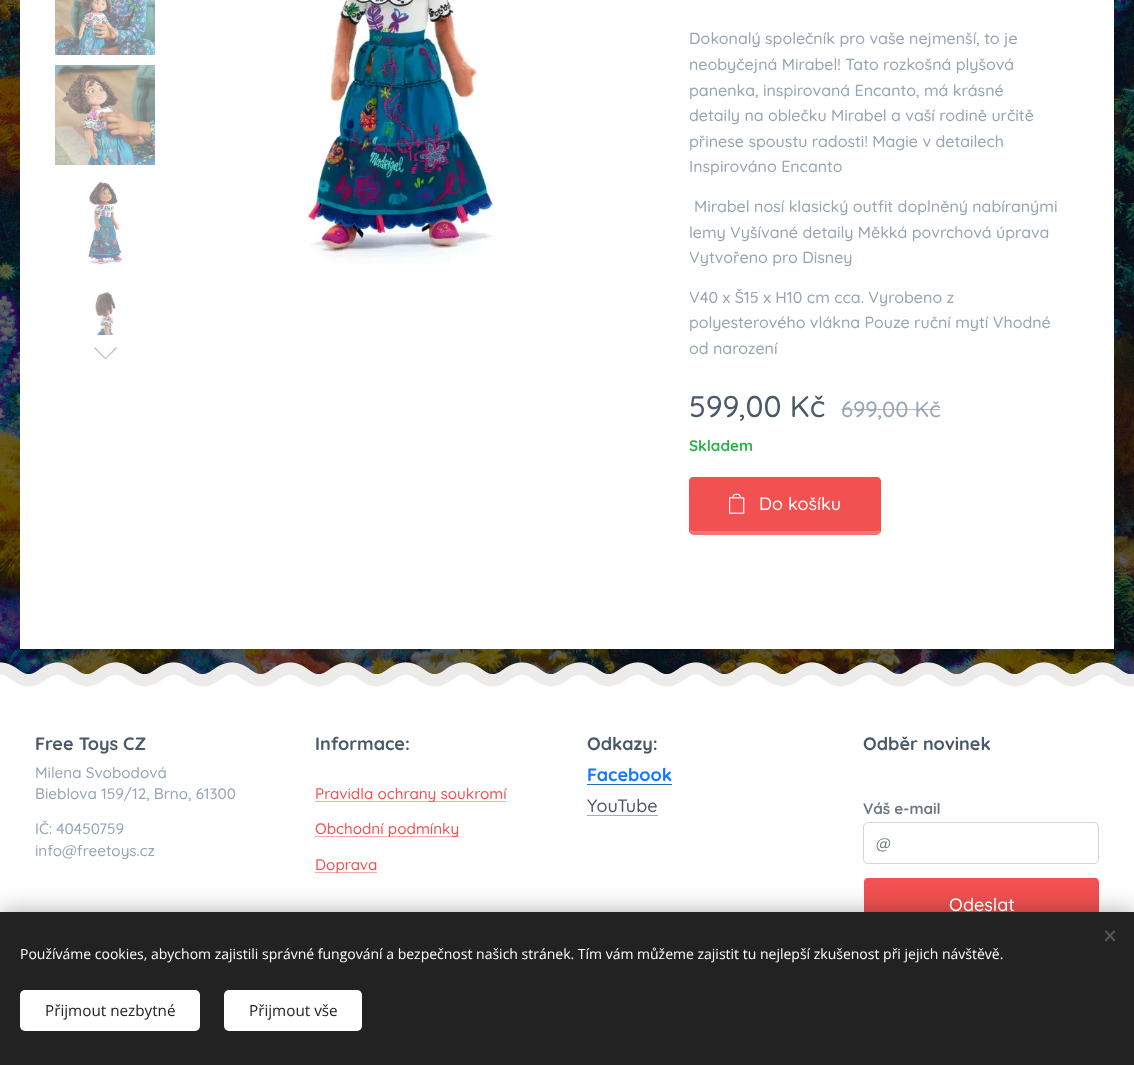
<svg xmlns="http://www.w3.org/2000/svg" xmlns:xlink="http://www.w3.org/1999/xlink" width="1134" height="1065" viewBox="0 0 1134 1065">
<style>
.cls-1{font:500 16px Quicksand;fill:#96a4b3}
.cls-2{font:500 30px Quicksand;fill:#495968}
.cls-3{font:500 22px Quicksand;fill:#96a4b3}
.cls-4{font:bold 15.25px Quicksand;fill:#2db247}
.cls-5{font:500 18px Quicksand;fill:#ffffff}
.cls-6{font:bold 18px Quicksand;fill:#495968}
.cls-7{font:500 15.25px Quicksand;fill:#96a4b3}
.cls-8{font:500 15.25px Quicksand;fill:#f25151}
.cls-9{font:bold 18px Quicksand;fill:#1278ff}
.cls-10{font:500 18px Quicksand;fill:#495968}
.cls-11{font:bold 15.25px Quicksand;fill:#6b7680}
.cls-12{font:500 15.25px Quicksand;fill:#6b7680}
.cls-13{font:14px Open Sans;fill:#ffffff}
.cls-14{font:15.25px Open Sans;fill:#222222}
</style>
<rect width="100%" height="100%" fill="#ffffff"/>
<image xlink:href="image0.png" x="0" y="0" width="1134" height="674"/>
<image xlink:href="image8.png" x="0" y="674" width="1134" height="13"/>
<rect fill="#000000" fill-opacity="0.1" filter="blur(12.5px)" x="20" y="-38" width="1094" height="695"/>
<rect fill="#ffffff" x="20" y="0" width="1094" height="649"/>
<image xlink:href="image1.png" x="55" y="0" width="100" height="55"/>
<image xlink:href="image2.png" x="55" y="65" width="100" height="100"/>
<image xlink:href="image3.png" x="88" y="182" width="34" height="83"/>
<image xlink:href="image4.png" x="95" y="292" width="21" height="43"/>
<path fill="#b6bfca" d="M117 348L116 347L105.5 358L95 347L94 348L105.5 359.5Z"/>
<image xlink:href="image5.png" x="307" y="0" width="188" height="264"/>
<rect fill="#f25151" x="689" y="477" width="192" height="58" rx="5"/>
<path fill="#f25151" d="M694 477C692 477 691 478 690 478L691 479C692 478 693 478 694 478H876C877 478 878 478 879 479L880 478C879 478 878 477 876 477Z"/>
<path fill="#f25151" d="M881 530V482C881 480 880 479 880 478L879 479C881 482 880 488 880 490V530V533Z"/>
<path fill="#ffffff" fill-opacity="0.2" d="M694 535H876C878 535 880 534 880 533V530L876 531H694L690 530V533C690 534 692 535 694 535Z"/>
<path fill="#f25151" d="M689 482V530L690 533V530V490C690 488 689 482 691 479L690 478C690 479 689 480 689 482Z"/>
<image xlink:href="image6.png" x="729" y="493" width="16" height="21"/>
<image xlink:href="image7.png" x="0" y="662" width="1134" height="12"/>
<rect fill="#f9a8a8" x="315" y="801" width="191" height="1"/>
<rect fill="#f9a8a8" x="315" y="836" width="144" height="1"/>
<rect fill="#f9a8a8" x="315" y="872" width="62" height="1"/>
<rect fill="#2e69b4" x="587" y="784" width="85" height="1"/>
<rect fill="#a4acb4" x="587" y="815" width="71" height="1"/>
<rect fill="none" stroke="#d4d4d4" x="863.5" y="822.5" width="235" height="41" rx="4.5"/>
<rect fill="#f25151" x="864" y="878" width="235" height="58" rx="5"/>
<path fill="#f25151" d="M869 878C868 878 866 878 865 879L866 880L869 879H1094L1097 880L1098 879C1097 878 1096 878 1094 878Z"/>
<path fill="#f25151" d="M1099 931V883C1099 882 1098 880 1098 879L1097 880C1099 883 1098 889 1098 891V931V934Z"/>
<path fill="#f25151" d="M864 883V931L865 934V931V891C865 889 864 883 866 880L865 879C864 880 864 882 864 883Z"/>
<rect fill="#000000" fill-opacity="0.33" filter="blur(12.5px)" x="0" y="912" width="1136" height="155"/>
<rect fill="#222222" x="0" y="912" width="1134" height="153"/>
<path fill="#555555" d="M1104.5 940L1114 930L1115.5 931.5L1106 941.5Z"/>
<path fill="#555555" d="M1106 930L1115.5 940L1114 941.5L1104.5 931.5Z"/>
<rect fill="#ffffff" x="20" y="990" width="180" height="41" rx="5"/>
<rect fill="#ffffff" x="224" y="990" width="138" height="41" rx="5"/>
<text class="cls-1"><tspan x="689" y="44">Dokonalý společník pro vaše nejmenší, to je</tspan><tspan x="689" y="70">neobyčejná Mirabel! Tato rozkošná plyšová</tspan><tspan x="689" y="96">panenka, inspirovaná Encanto, má krásné</tspan><tspan x="689" y="121">detaily na oblečku Mirabel a vaší rodině určitě</tspan><tspan x="689" y="147">přinese spoustu radosti! Magie v detailech</tspan><tspan x="689" y="172">Inspirováno Encanto</tspan></text>
<text class="cls-1" x="694" y="212">Mirabel nosí klasický outfit doplněný nabíranými</text>
<text class="cls-1"><tspan x="689" y="238">lemy Vyšívané detaily Měkká povrchová úprava</tspan><tspan x="689" y="263">Vytvořeno pro Disney</tspan></text>
<text class="cls-1"><tspan x="689" y="303">V40 x Š15 x H10 cm cca. Vyrobeno z</tspan><tspan x="689" y="328">polyesterového vlákna Pouze ruční mytí Vhodné</tspan><tspan x="689" y="354">od narození</tspan></text>
<text class="cls-2" x="689" y="417">599,00 Kč</text>
<text class="cls-3" x="841" y="417">699,00 Kč</text>
<rect fill="#96a4b3" fill-opacity="0.75" x="841" y="409" width="99" height="1"/>
<text class="cls-4" x="689" y="451">Skladem</text>
<text class="cls-5" x="759" y="510">Do košíku</text>
<text class="cls-6" x="35" y="750">Free Toys CZ</text>
<text class="cls-7"><tspan x="35" y="778">Milena Svobodová</tspan><tspan x="35" y="799">Bieblova 159/12, Brno, 61300</tspan></text>
<text class="cls-7"><tspan x="35" y="834">IČ: 40450759</tspan><tspan x="35" y="856">info@freetoys.cz</tspan></text>
<text class="cls-6" x="315" y="750">Informace:</text>
<text class="cls-8" x="315" y="799">Pravidla ochrany soukromí</text>
<text class="cls-8" x="315" y="834">Obchodní podmínky</text>
<text class="cls-8" x="315" y="870">Doprava</text>
<text class="cls-6" x="587" y="750">Odkazy:</text>
<text class="cls-9" x="587" y="781">Facebook</text>
<text class="cls-10" x="587" y="812">You</text>
<text class="cls-10" x="617" y="812">Tube</text>
<text class="cls-6" x="863" y="750">Odběr novinek</text>
<text class="cls-11" x="863" y="814">Váš e-mail</text>
<text class="cls-12" x="876" y="849">@</text>
<text class="cls-5" x="949" y="911">Odeslat</text>
<text class="cls-13" x="20" y="959">Používáme cookies, abychom zajistili správné fungování a bezpečnost našich stránek. Tím vám můžeme zajistit tu nejlepší zkušenost při jejich návštěvě.</text>
<text class="cls-14" x="45" y="1016">Přijmout nezbytné</text>
<text class="cls-14" x="249" y="1016">Přijmout vše</text>
</svg>
